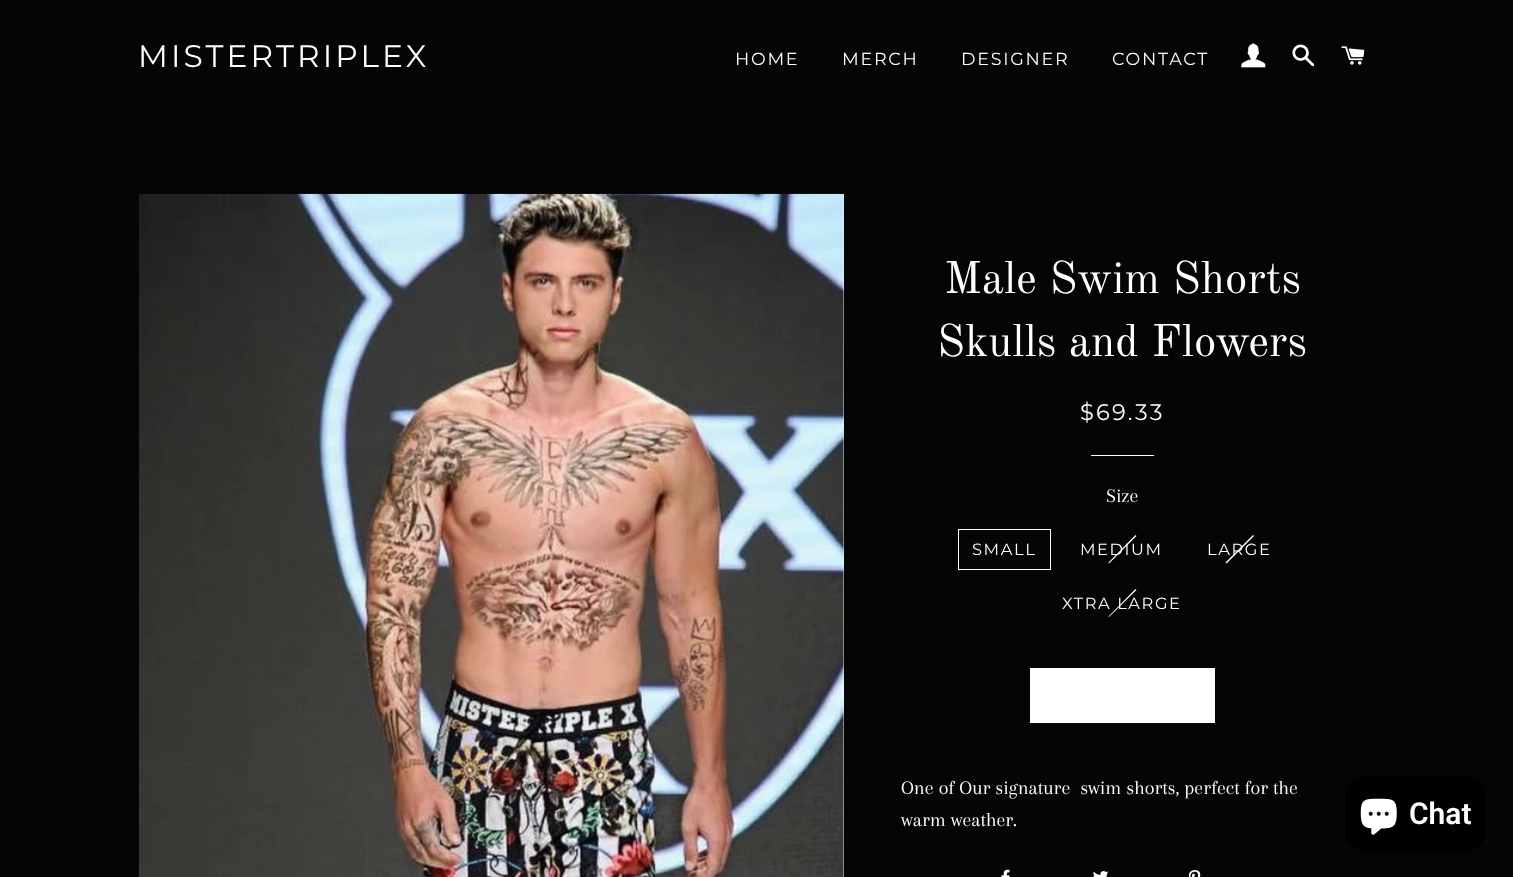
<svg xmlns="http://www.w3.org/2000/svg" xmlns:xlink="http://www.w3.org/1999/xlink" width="1513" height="877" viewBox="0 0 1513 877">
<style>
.cls-1{font:100 31.25px Montserrat;letter-spacing:3.1px;fill:#ffffff}
.cls-2{font:100 17.5px Montserrat;letter-spacing:1.75px;fill:#ffffff}
.cls-3{font:45px Old Standard TT;fill:#ffffff}
.cls-4{font:100 22.5px Montserrat;letter-spacing:2.25px;fill:#ffffff}
.cls-5{font:20px Arapey;fill:#ffffff}
.cls-6{font:100 16.25px Montserrat;letter-spacing:1.6px;fill:#ffffff}
.cls-7{font:600 30px Roboto;fill:#ffffff}
</style>
<rect width="100%" height="100%" fill="#050505"/>
<image xlink:href="image0.png" x="1241" y="43" width="25" height="25"/>
<image xlink:href="image1.png" x="1292" y="44" width="23" height="23"/>
<image xlink:href="image2.png" x="1341" y="46" width="24" height="19"/>
<rect fill="#f7f7f7" x="843" y="194" width="1" height="683"/>
<image xlink:href="image3.png" x="139" y="193" width="705" height="684"/>
<rect fill="#ffffff" x="1091" y="455" width="63" height="1"/>
<rect fill="none" stroke="#ffffff" x="958.5" y="529.5" width="92" height="40"/>
<path fill="#ffffff" d="M1135.5 535L1136.5 536L1109 563.5L1108.5 562.5Z"/>
<path fill="#ffffff" d="M1253 535L1254 536L1226.5 563.5L1225.5 562.5Z"/>
<path fill="#ffffff" d="M1135.5 589L1136.5 590L1109 617L1108.5 616.5Z"/>
<rect fill="#ffffff" x="1030" y="668" width="185" height="55"/>
<image xlink:href="image4.png" x="1001" y="869" width="9" height="8"/>
<image xlink:href="image5.png" x="1093" y="871" width="16" height="6"/>
<image xlink:href="image6.png" x="1188" y="870" width="13" height="7"/>
<rect fill="#000000" x="1345" y="776" width="141" height="75" rx="20"/>
<image xlink:href="image7.png" x="1360" y="798" width="37" height="37"/>
<text class="cls-1" x="138" y="67">MISTERTRIPLEX</text>
<text class="cls-2" x="735" y="65">HOME</text>
<text class="cls-2" x="842" y="65">MERCH</text>
<text class="cls-2" x="961" y="65">DESIGNER</text>
<text class="cls-2" x="1112" y="65">CONTACT</text>
<text class="cls-3" x="944" y="293">Male Swim Shorts</text>
<text class="cls-3" x="937" y="356">Skulls and Flowers</text>
<text class="cls-4" x="1080" y="420">$69.33</text>
<text class="cls-5" x="1106" y="502">Size</text>
<text class="cls-6" x="972" y="555">SMALL</text>
<text class="cls-6" x="1080" y="555">MEDIUM</text>
<text class="cls-6" x="1207" y="555">LARGE</text>
<text class="cls-6" x="1062" y="609">XTRA LARGE</text>
<text class="cls-5" xml:space="preserve"><tspan x="901" y="794">One of Our signature  swim shorts, perfect for the</tspan><tspan x="901" y="826">warm weather.</tspan></text>
<text class="cls-7" x="1409" y="824">Chat</text>
</svg>
